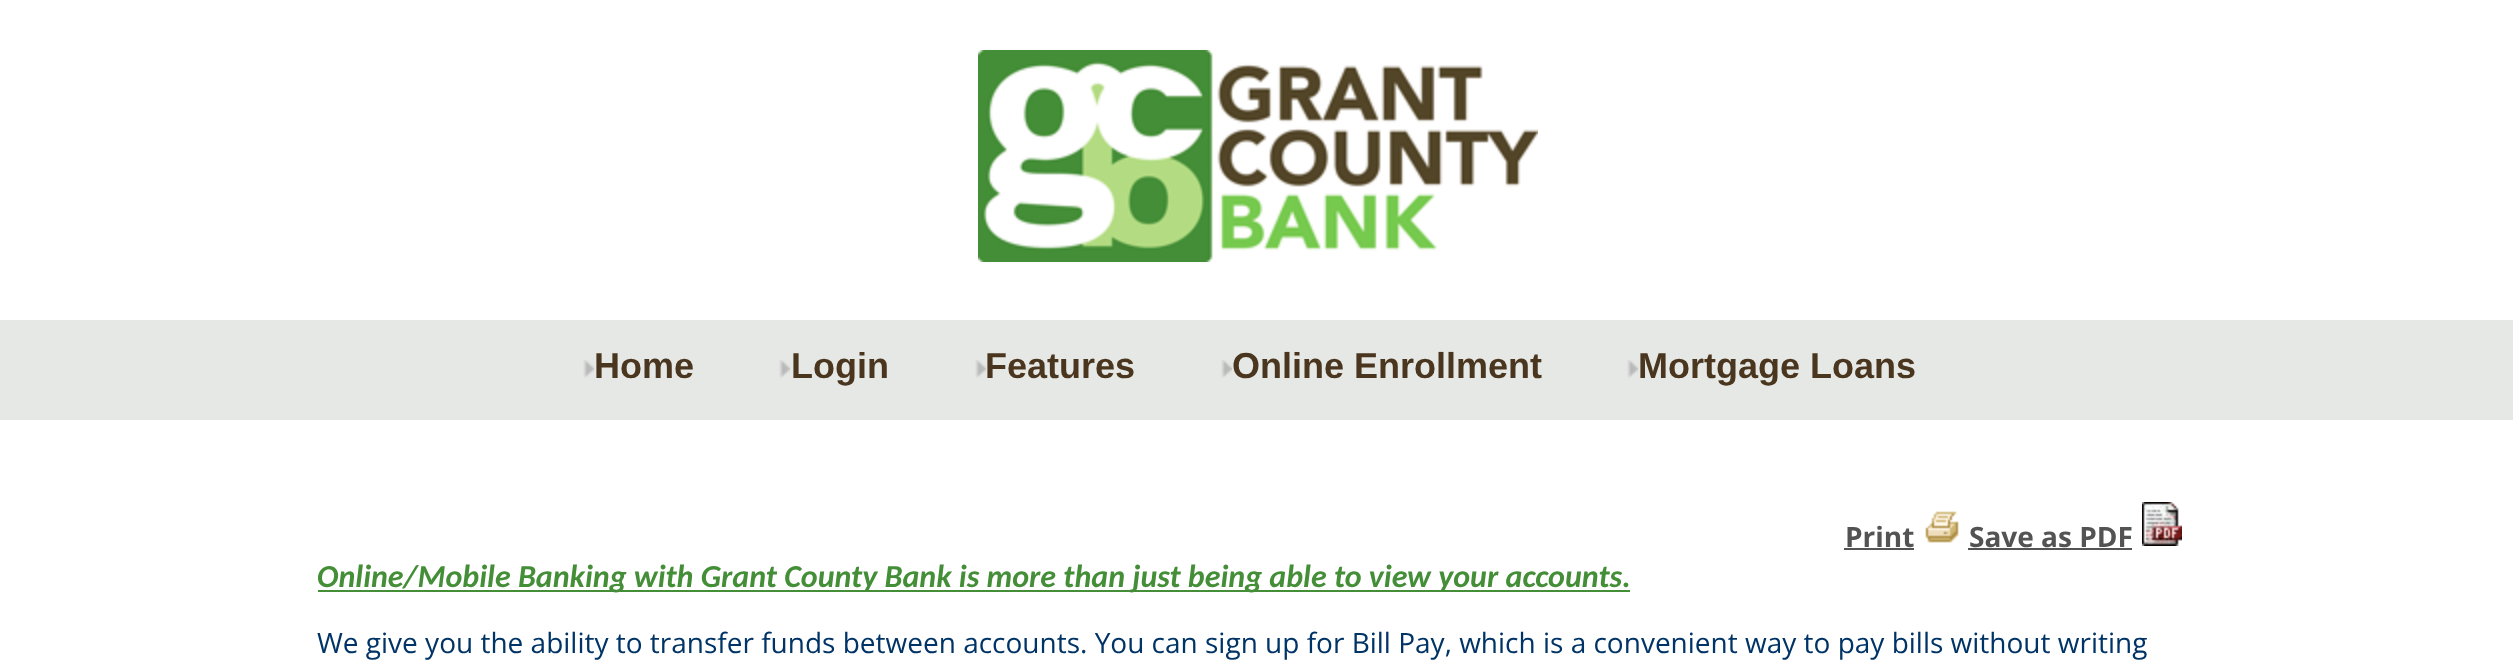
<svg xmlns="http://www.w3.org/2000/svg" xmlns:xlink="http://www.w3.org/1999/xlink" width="2513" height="670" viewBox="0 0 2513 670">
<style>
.cls-1{font:bold 36px Liberation Sans;fill:#4a361e}
.cls-2{font:bold 28px Open Sans;fill:#535353}
.cls-3{font:italic bold 32px Carlito;fill:#448e38}
.cls-4{font:28px Open Sans;fill:#003366}
</style>
<rect width="100%" height="100%" fill="#ffffff"/>
<image xlink:href="image0.png" x="978" y="50" width="560" height="212"/>
<rect fill="#e6e8e6" x="0" y="320" width="2513" height="100"/>
<image xlink:href="image1.png" x="583" y="360" width="11" height="18"/>
<image xlink:href="image1.png" x="779" y="360" width="11" height="18"/>
<image xlink:href="image1.png" x="975" y="360" width="11" height="18"/>
<image xlink:href="image1.png" x="1221" y="360" width="11" height="18"/>
<image xlink:href="image1.png" x="1627" y="360" width="11" height="18"/>
<rect fill="#535353" x="1844" y="548" width="70" height="2"/>
<image xlink:href="image2.png" x="1925" y="511" width="34" height="32"/>
<rect fill="#535353" x="1968" y="548" width="164" height="2"/>
<image xlink:href="image3.png" x="2142" y="502" width="40" height="44"/>
<rect fill="#448e38" x="318" y="590" width="1312" height="2"/>
<text class="cls-1" x="594" y="378">Home</text>
<text class="cls-1" x="791" y="378">Login</text>
<text class="cls-1" x="985" y="378">Features</text>
<text class="cls-1" x="1232" y="378">Online Enrollment</text>
<text class="cls-1" x="1638" y="378">Mortgage Loans</text>
<text class="cls-2" x="1845" y="547">Print</text>
<text class="cls-2" x="1969" y="547">Save as PDF</text>
<text class="cls-3" x="317" y="587">Online/Mobile Banking with Grant County Bank is more than just being able to view your accounts.</text>
<text class="cls-4" x="317" y="653">We give you the ability to transfer funds between accounts. You can sign up for Bill Pay, which is a convenient way to pay bills without writing</text>
</svg>
